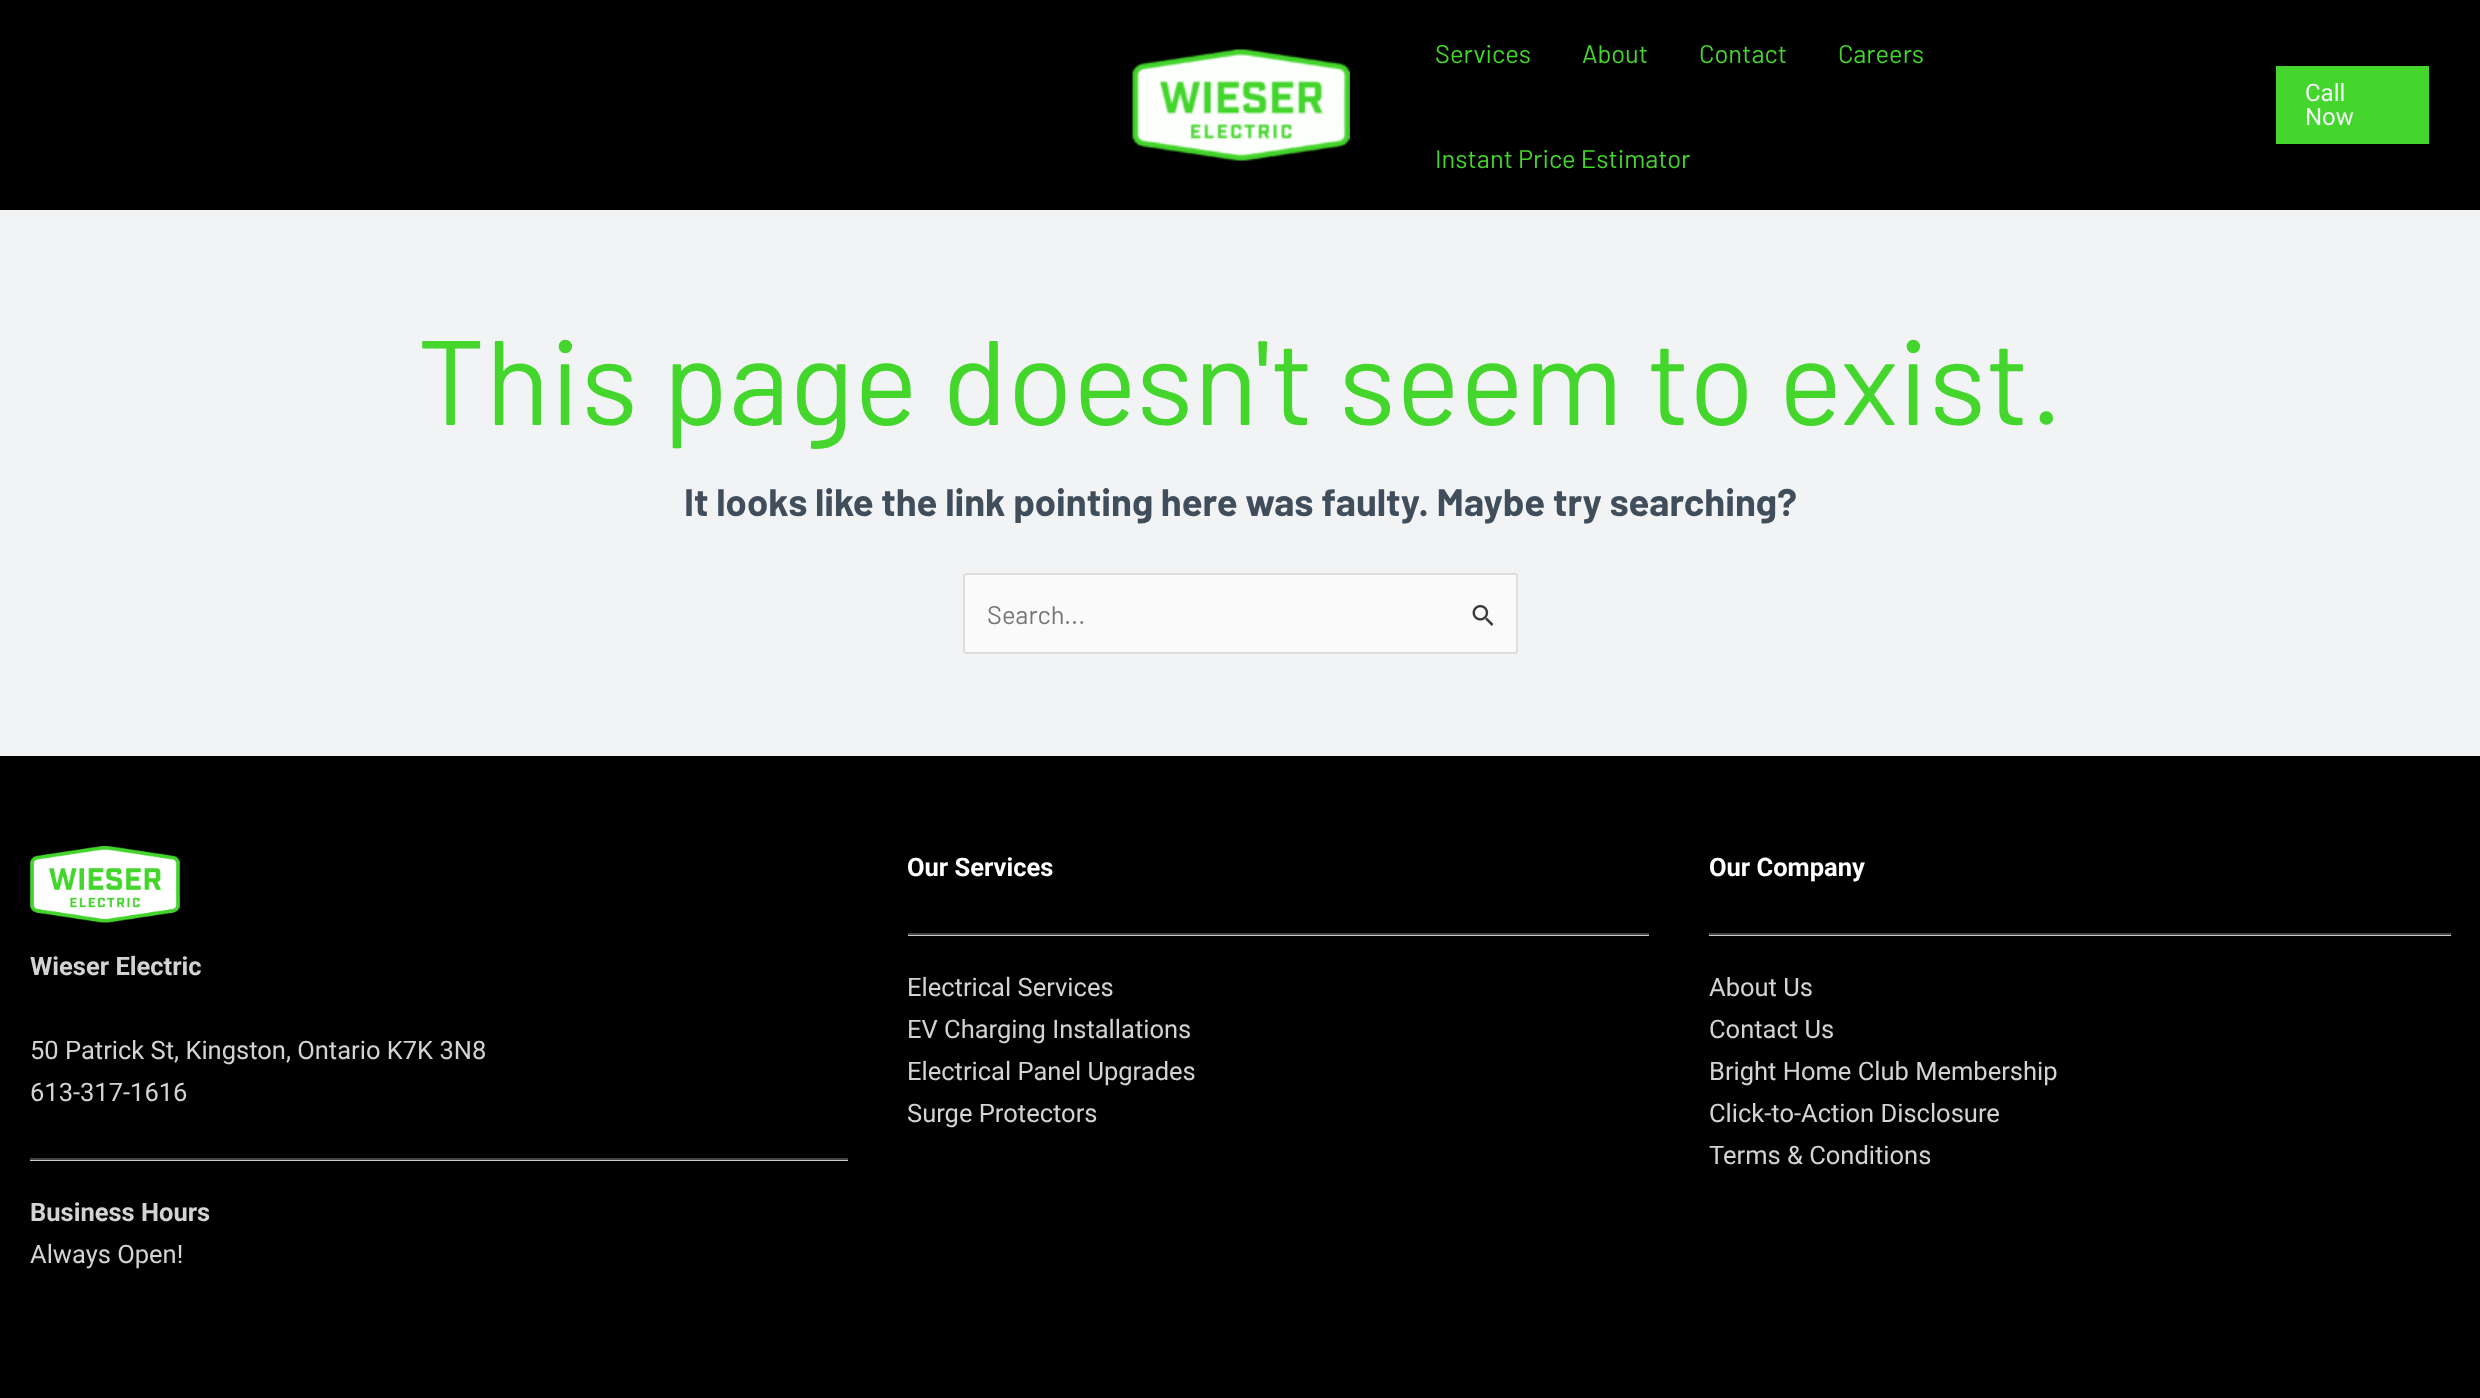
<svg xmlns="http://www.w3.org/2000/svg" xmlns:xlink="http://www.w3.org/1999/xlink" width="2480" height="1398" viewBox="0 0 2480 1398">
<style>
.cls-1{font:25.5px Barlow;fill:#44d62c}
.cls-2{font:24px Roboto;fill:#f2f3f5}
.cls-3{font:120px Barlow;fill:#44d62c}
.cls-4{font:bold 38.25px Barlow;fill:#404e5c}
.cls-5{font:25.5px Barlow;fill:#757575}
.cls-6{font:bold 25.5px Roboto;fill:#d3d3d3}
.cls-7{font:25.5px Roboto;fill:#d3d3d3}
.cls-8{font:bold 25.5px Roboto;fill:#ffffff}
</style>
<rect width="100%" height="100%" fill="#f2f3f5"/>
<rect fill="#000000" x="0" y="0" width="2480" height="210"/>
<image xlink:href="image0.png" x="1132" y="49" width="218" height="112"/>
<rect fill="#44d62c" x="2276" y="66" width="153" height="78"/>
<rect fill="#fafafa" stroke="#dddddd" stroke-width="2" x="964" y="574" width="553" height="79" rx="2"/>
<image xlink:href="image1.png" x="1472" y="605" width="21" height="21"/>
<rect fill="#000000" x="0" y="756" width="2480" height="642"/>
<image xlink:href="image2.png" x="30" y="846" width="150" height="77"/>
<rect fill="#cccccc" x="30" y="1160" width="818" height="1"/>
<rect fill="#444444" x="30" y="1158" width="818" height="2"/>
<rect fill="#cccccc" x="908" y="935" width="741" height="1"/>
<rect fill="#444444" x="908" y="933" width="741" height="2"/>
<rect fill="#cccccc" x="1709" y="935" width="742" height="1"/>
<rect fill="#444444" x="1709" y="933" width="742" height="2"/>
<text class="cls-1" x="1435" y="63">Services</text>
<text class="cls-1" x="1582" y="63">About</text>
<text class="cls-1" x="1699" y="63">Contact</text>
<text class="cls-1" x="1838" y="63">Careers</text>
<text class="cls-1" x="1435" y="168">Instant Price Estimator</text>
<text class="cls-2"><tspan x="2305" y="101">Call</tspan><tspan x="2305" y="125">Now</tspan></text>
<text class="cls-3" x="417" y="425">This page doesn't seem to exist.</text>
<text class="cls-4" x="684" y="516">It looks like the link pointing here was faulty. Maybe try searching?</text>
<text class="cls-5" x="987" y="624">Search...</text>
<text class="cls-6" x="30" y="975">Wieser Electric</text>
<text class="cls-7"><tspan x="30" y="1059">50 Patrick St, Kingston, Ontario K7K 3N8</tspan><tspan x="30" y="1101">613-317-1616</tspan></text>
<text class="cls-6" x="30" y="1221">Business Hours</text>
<text class="cls-7" x="30" y="1263">Always Open!</text>
<text class="cls-8" x="907" y="876">Our Services</text>
<text class="cls-7"><tspan x="907" y="996">Electrical Services</tspan><tspan x="907" y="1038">EV Charging Installations</tspan><tspan x="907" y="1080">Electrical Panel Upgrades</tspan><tspan x="907" y="1122">Surge Protectors</tspan></text>
<text class="cls-8" x="1709" y="876">Our Company</text>
<text class="cls-7"><tspan x="1709" y="996">About Us</tspan><tspan x="1709" y="1038">Contact Us</tspan><tspan x="1709" y="1080">Bright Home Club Membership</tspan><tspan x="1709" y="1122">Click-to-Action Disclosure</tspan><tspan x="1709" y="1164">Terms &amp; Conditions</tspan></text>
</svg>
